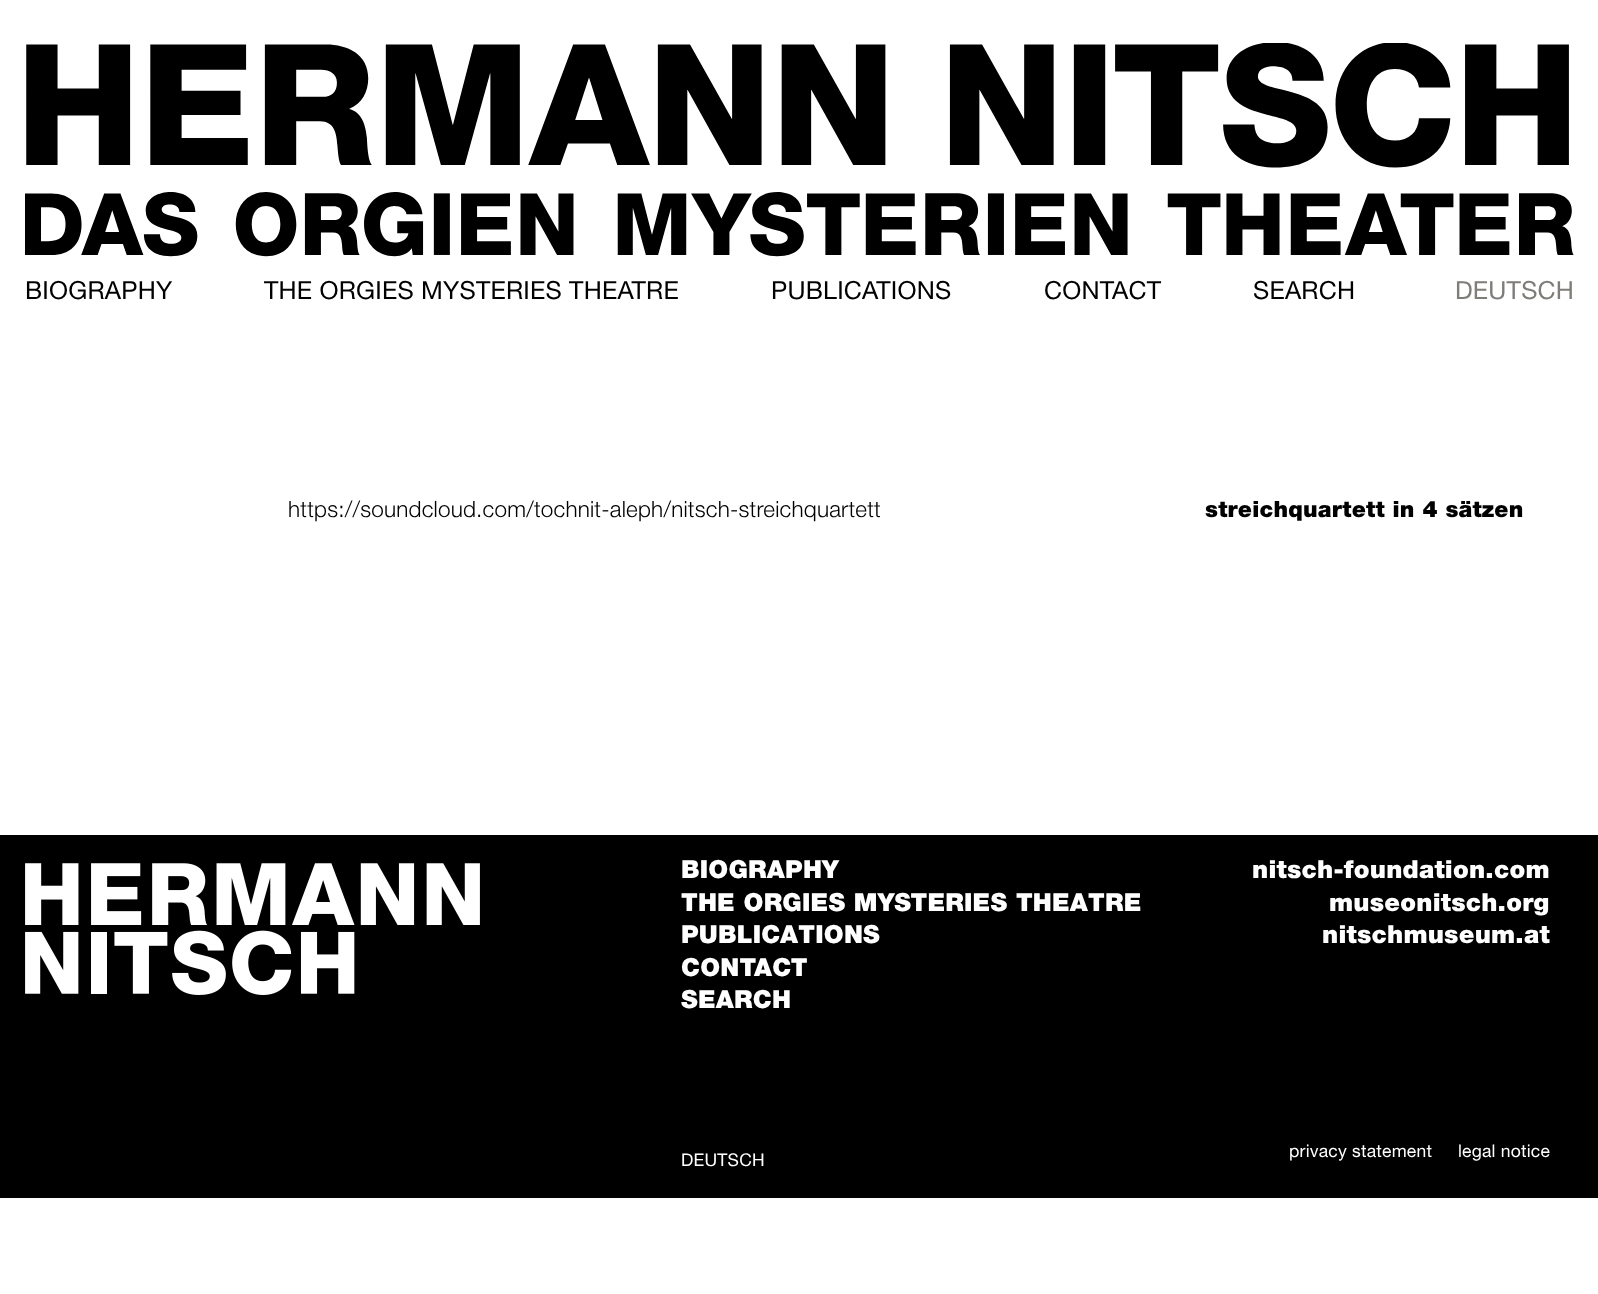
<svg xmlns="http://www.w3.org/2000/svg" xmlns:xlink="http://www.w3.org/1999/xlink" width="1598" height="1294" viewBox="0 0 1598 1294">
<style>
.cls-1{font:25px 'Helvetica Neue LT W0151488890';letter-spacing:0.22px;fill:#000000}
.cls-2{font:25px 'Helvetica Neue LT W0151488890';letter-spacing:0.22px;fill:#7f7d7a}
.cls-3{font:300 22.5px 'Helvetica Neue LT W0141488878';letter-spacing:0.22px;fill:#000000}
.cls-4{font:900 22.5px 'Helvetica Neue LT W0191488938';letter-spacing:0.22px;fill:#000000}
.cls-5{font:900 25px 'Helvetica Neue LT W0191488938';letter-spacing:0.22px;fill:#ffffff}
.cls-6{font:17.5px 'Helvetica Neue LT W0151488890';letter-spacing:0.22px;fill:#ffffff}
</style>
<rect width="100%" height="100%" fill="#ffffff"/>
<image xlink:href="image0.png" x="25" y="43" width="1549" height="214"/>
<rect fill="#000000" x="0" y="835" width="1598" height="363"/>
<image xlink:href="image1.png" x="25" y="863" width="455" height="132"/>
<text class="cls-1" x="25" y="299">BIOGRAPHY</text>
<text class="cls-1" x="264" y="299">THE ORGIES MYSTERIES THEATRE</text>
<text class="cls-1" x="771" y="299">PUBLICATIONS</text>
<text class="cls-1" x="1044" y="299">CONTACT</text>
<text class="cls-1" x="1253" y="299">SEARCH</text>
<text class="cls-2" x="1455" y="299">DEUTSCH</text>
<text class="cls-3" x="288" y="517">https://soundcloud.com/tochnit-aleph/nitsch-streichquartett</text>
<text class="cls-4" x="1205" y="517">streichquartett in 4 sätzen</text>
<text class="cls-5"><tspan x="681" y="878">BIOGRAPHY</tspan><tspan x="681" y="911">THE ORGIES MYSTERIES THEATRE</tspan><tspan x="681" y="943">PUBLICATIONS</tspan><tspan x="681" y="976">CONTACT</tspan><tspan x="681" y="1008">SEARCH</tspan></text>
<text class="cls-6" x="681" y="1166">DEUTSCH</text>
<text class="cls-5" x="1252" y="878">nitsch-foundation.com</text>
<text class="cls-5" x="1329" y="911">museonitsch.org</text>
<text class="cls-5" x="1322" y="943">nitschmuseum.at</text>
<text class="cls-6" x="1289" y="1157">privacy statement</text>
<text class="cls-6" x="1458" y="1157">legal notice</text>
</svg>
